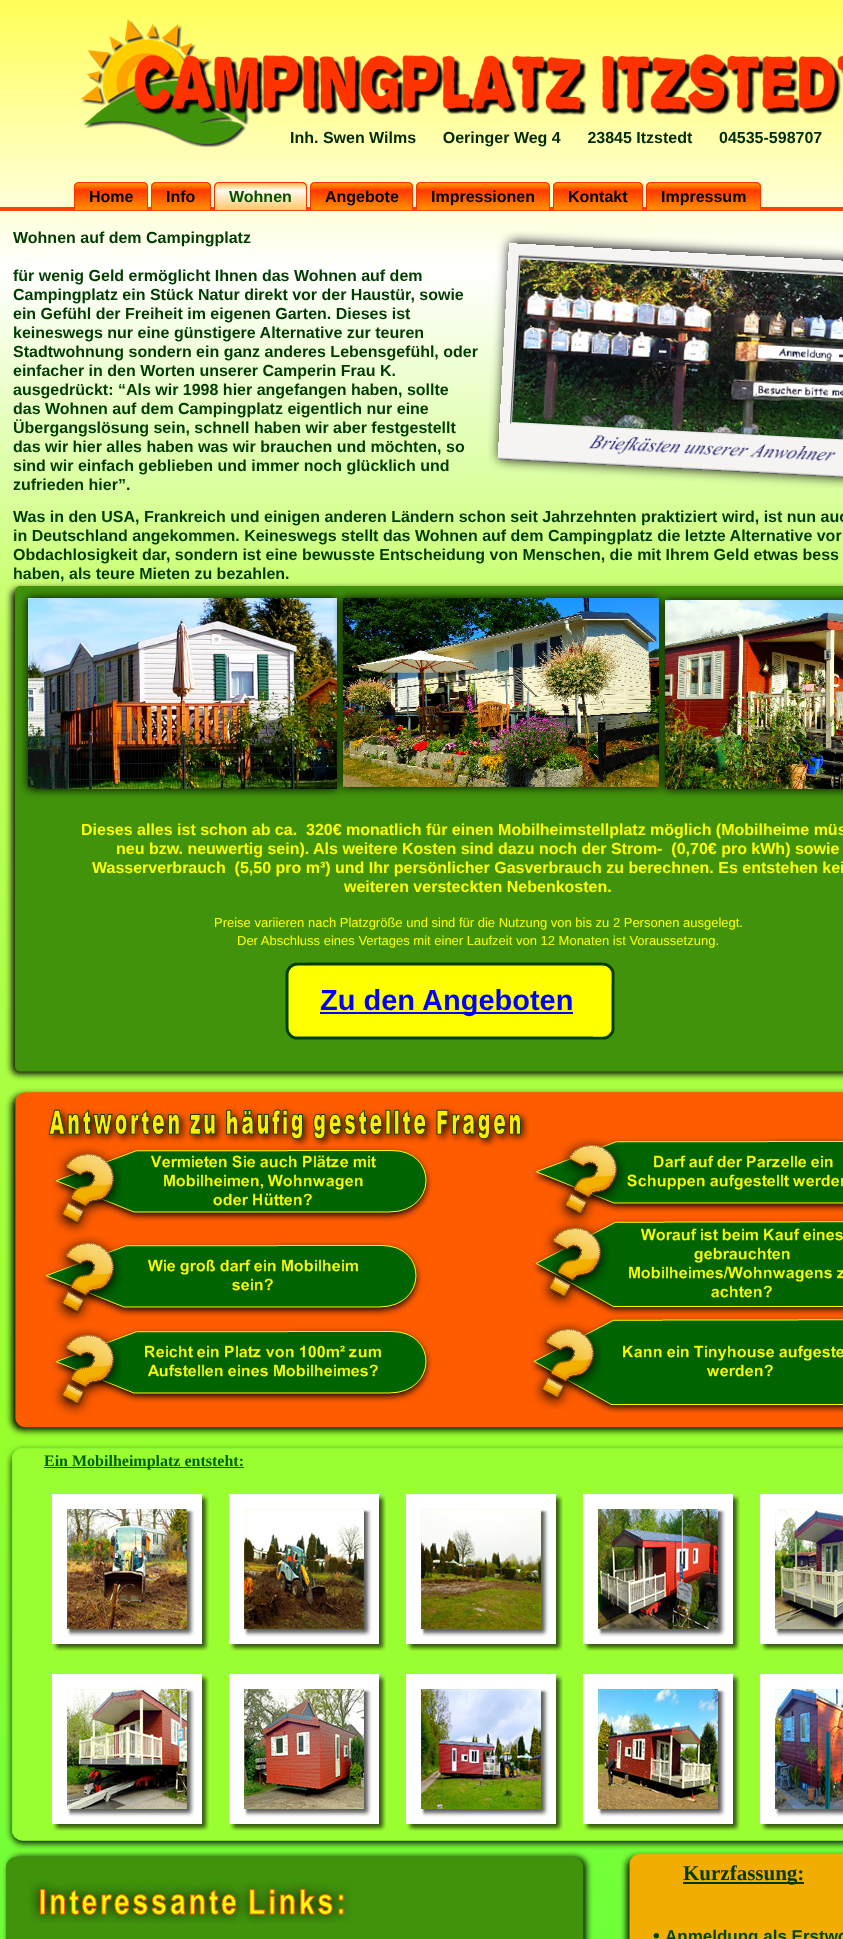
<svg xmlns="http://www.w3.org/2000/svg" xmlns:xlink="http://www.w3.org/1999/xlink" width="843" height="1939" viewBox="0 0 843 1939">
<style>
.cls-1{font:bold 16px Liberation Sans;fill:#002b00}
.cls-2{font:bold 16px Liberation Sans;fill:#000000}
.cls-3{font:bold 16px Liberation Sans;fill:#005300}
.cls-4{font:bold 16px Liberation Sans;fill:#003c00}
.cls-5{font:bold 16px Liberation Sans;fill:#ffff00}
.cls-6{font:13px Liberation Sans;fill:#ffff00}
.cls-7{font:bold 29px Liberation Sans;fill:#0000ff}
.cls-8{font:bold 16px Liberation Serif;fill:#006400}
.cls-9{font:bold 21px Liberation Serif;fill:#003c00}
.cls-10{font:bold 19px Liberation Sans;fill:#004800}
.cls-11{font:bold 17px Liberation Sans;fill:#004800}
</style>
<defs>
<clipPath id="clip1"><path d="M79 182H143C146 182 148 184 148 187V213H74V187C74 184 76 182 79 182Z"/></clipPath>
<linearGradient id="g1" gradientUnits="userSpaceOnUse" x1="111" y1="183" x2="111" y2="213"><stop offset="0" stop-color="#ffa000"/><stop offset="0.25" stop-color="#ff3900"/><stop offset="1" stop-color="#ffa000"/></linearGradient>
<clipPath id="clip2"><rect x="64" y="172" width="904" height="38"/></clipPath>
<clipPath id="clip3"><path d="M156 182H206C209 182 211 184 211 187V213H151V187C151 184 153 182 156 182Z"/></clipPath>
<linearGradient id="g2" gradientUnits="userSpaceOnUse" x1="181" y1="183" x2="181" y2="213"><stop offset="0" stop-color="#ffa000"/><stop offset="0.25" stop-color="#ff3900"/><stop offset="1" stop-color="#ffa000"/></linearGradient>
<clipPath id="clip4"><path d="M219 182H302C305 182 307 184 307 187V213H214V187C214 184 216 182 219 182Z"/></clipPath>
<linearGradient id="g3" gradientUnits="userSpaceOnUse" x1="261" y1="183" x2="261" y2="213"><stop offset="0" stop-color="#ffbe4b"/><stop offset="0.25" stop-color="#fffbf5"/><stop offset="1" stop-color="#ffbe4b"/></linearGradient>
<clipPath id="clip5"><path d="M315 182H408C411 182 413 184 413 187V213H310V187C310 184 312 182 315 182Z"/></clipPath>
<linearGradient id="g4" gradientUnits="userSpaceOnUse" x1="362" y1="183" x2="362" y2="213"><stop offset="0" stop-color="#ffa000"/><stop offset="0.25" stop-color="#ff3900"/><stop offset="1" stop-color="#ffa000"/></linearGradient>
<clipPath id="clip6"><path d="M421 182H545C548 182 550 184 550 187V213H416V187C416 184 418 182 421 182Z"/></clipPath>
<linearGradient id="g5" gradientUnits="userSpaceOnUse" x1="483" y1="183" x2="483" y2="213"><stop offset="0" stop-color="#ffa000"/><stop offset="0.25" stop-color="#ff3900"/><stop offset="1" stop-color="#ffa000"/></linearGradient>
<clipPath id="clip7"><path d="M558 182H638C641 182 643 184 643 187V213H553V187C553 184 555 182 558 182Z"/></clipPath>
<linearGradient id="g6" gradientUnits="userSpaceOnUse" x1="598" y1="183" x2="598" y2="213"><stop offset="0" stop-color="#ffa000"/><stop offset="0.25" stop-color="#ff3900"/><stop offset="1" stop-color="#ffa000"/></linearGradient>
<clipPath id="clip8"><path d="M651 182H756C759 182 761 184 761 187V213H646V187C646 184 648 182 651 182Z"/></clipPath>
<linearGradient id="g7" gradientUnits="userSpaceOnUse" x1="704" y1="183" x2="704" y2="213"><stop offset="0" stop-color="#ffa000"/><stop offset="0.25" stop-color="#ff3900"/><stop offset="1" stop-color="#ffa000"/></linearGradient>
</defs>
<rect width="100%" height="100%" fill="#ffffff"/>
<image xlink:href="image0.png" x="0" y="0" width="843" height="1939"/>
<image xlink:href="image1.png" x="80" y="19" width="763" height="128"/>
<rect fill="#f04800" x="0" y="207" width="843" height="4"/>
<g clip-path="url(#clip1)">
<rect fill="url(#g1)" x="74" y="183" width="74" height="27"/>
</g>
<g clip-path="url(#clip2)">
<path fill="#ff3300" fill-rule="evenodd" d="M79 182H143C146 182 148 184 148 187V213H74V187C74 184 76 182 79 182ZM79 183H143C145 183 147 185 147 187V213H75V187C75 185 77 183 79 183Z"/>
</g>
<g clip-path="url(#clip3)">
<rect fill="url(#g2)" x="151" y="183" width="60" height="27"/>
</g>
<g clip-path="url(#clip2)">
<path fill="#ff3300" fill-rule="evenodd" d="M156 182H206C209 182 211 184 211 187V213H151V187C151 184 153 182 156 182ZM156 183H206C208 183 210 185 210 187V213H152V187C152 185 154 183 156 183Z"/>
</g>
<g clip-path="url(#clip4)">
<rect fill="url(#g3)" x="214" y="183" width="93" height="27"/>
</g>
<g clip-path="url(#clip2)">
<path fill="#ff3300" fill-rule="evenodd" d="M219 182H302C305 182 307 184 307 187V213H214V187C214 184 216 182 219 182ZM219 183H302C304 183 306 185 306 187V213H215V187C215 185 217 183 219 183Z"/>
</g>
<g clip-path="url(#clip5)">
<rect fill="url(#g4)" x="310" y="183" width="103" height="27"/>
</g>
<g clip-path="url(#clip2)">
<path fill="#ff3300" fill-rule="evenodd" d="M315 182H408C411 182 413 184 413 187V213H310V187C310 184 312 182 315 182ZM315 183H408C410 183 412 185 412 187V213H311V187C311 185 313 183 315 183Z"/>
</g>
<g clip-path="url(#clip6)">
<rect fill="url(#g5)" x="416" y="183" width="134" height="27"/>
</g>
<g clip-path="url(#clip2)">
<path fill="#ff3300" fill-rule="evenodd" d="M421 182H545C548 182 550 184 550 187V213H416V187C416 184 418 182 421 182ZM421 183H545C547 183 549 185 549 187V213H417V187C417 185 419 183 421 183Z"/>
</g>
<g clip-path="url(#clip7)">
<rect fill="url(#g6)" x="553" y="183" width="90" height="27"/>
</g>
<g clip-path="url(#clip2)">
<path fill="#ff3300" fill-rule="evenodd" d="M558 182H638C641 182 643 184 643 187V213H553V187C553 184 555 182 558 182ZM558 183H638C640 183 642 185 642 187V213H554V187C554 185 556 183 558 183Z"/>
</g>
<g clip-path="url(#clip8)">
<rect fill="url(#g7)" x="646" y="183" width="115" height="27"/>
</g>
<g clip-path="url(#clip2)">
<path fill="#ff3300" fill-rule="evenodd" d="M651 182H756C759 182 761 184 761 187V213H646V187C646 184 648 182 651 182ZM651 183H756C758 183 760 185 760 187V213H647V187C647 185 649 183 651 183Z"/>
</g>
<image xlink:href="image2.png" x="488" y="231" width="355" height="257"/>
<image xlink:href="image3.png" x="588" y="435" width="248" height="27"/>
<image xlink:href="image4.png" x="5" y="582" width="838" height="499"/>
<rect fill="#000000" filter="blur(5px)" x="28" y="598" width="309" height="191"/>
<image xlink:href="image5.png" x="28" y="598" width="309" height="191"/>
<rect fill="#000000" filter="blur(5px)" x="665" y="600" width="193" height="189"/>
<image xlink:href="image7.png" x="665" y="600" width="178" height="189"/>
<rect fill="#000000" filter="blur(5px)" x="343" y="598" width="316" height="189"/>
<image xlink:href="image6.png" x="343" y="598" width="316" height="189"/>
<image xlink:href="image8.png" x="285" y="962" width="330" height="78"/>
<rect fill="#0000ff" x="320" y="1012" width="253" height="2"/>
<image xlink:href="image9.png" x="5" y="1088" width="838" height="349"/>
<image xlink:href="image10.png" x="47" y="1107" width="482" height="40"/>
<image xlink:href="image11.png" x="532" y="1137" width="311" height="76"/>
<image xlink:href="image12.png" x="52" y="1146" width="381" height="76"/>
<image xlink:href="image13.png" x="555" y="1137" width="70" height="89"/>
<image xlink:href="image14.png" x="52" y="1146" width="70" height="89"/>
<image xlink:href="image15.png" x="532" y="1218" width="311" height="98"/>
<image xlink:href="image18.png" x="42" y="1241" width="381" height="76"/>
<image xlink:href="image16.png" x="52" y="1235" width="70" height="89"/>
<image xlink:href="image17.png" x="539" y="1220" width="70" height="89"/>
<image xlink:href="image19.png" x="530" y="1316" width="313" height="98"/>
<image xlink:href="image20.png" x="52" y="1327" width="381" height="76"/>
<image xlink:href="image21.png" x="532" y="1321" width="70" height="89"/>
<image xlink:href="image14.png" x="52" y="1327" width="70" height="89"/>
<image xlink:href="image22.png" x="5" y="1444" width="838" height="406"/>
<rect fill="#006400" x="44" y="1467" width="200" height="1"/>
<image xlink:href="image23.png" x="52" y="1494" width="157" height="157"/>
<image xlink:href="image24.png" x="229" y="1494" width="157" height="157"/>
<image xlink:href="image25.png" x="406" y="1494" width="157" height="157"/>
<image xlink:href="image26.png" x="583" y="1494" width="157" height="157"/>
<image xlink:href="image27.png" x="760" y="1494" width="83" height="157"/>
<image xlink:href="image28.png" x="52" y="1674" width="157" height="157"/>
<image xlink:href="image29.png" x="229" y="1674" width="157" height="157"/>
<image xlink:href="image30.png" x="406" y="1674" width="157" height="157"/>
<image xlink:href="image31.png" x="583" y="1674" width="157" height="157"/>
<image xlink:href="image32.png" x="760" y="1674" width="83" height="157"/>
<image xlink:href="image33.png" x="2" y="1850" width="591" height="89"/>
<image xlink:href="image34.png" x="620" y="1850" width="223" height="89"/>
<rect fill="#003700" x="683" y="1882" width="121" height="2"/>
<image xlink:href="image35.png" x="29" y="1881" width="322" height="43"/>
<text class="cls-1" xml:space="preserve" x="290" y="143">Inh. Swen Wilms      Oeringer Weg 4      23845 Itzstedt      04535-598707</text>
<text class="cls-2" x="89" y="202">Home</text>
<text class="cls-2" x="166" y="202">Info</text>
<text class="cls-3" x="229" y="202">Wohnen</text>
<text class="cls-2" x="325" y="202">Angebote</text>
<text class="cls-2" x="431" y="202">Impressionen</text>
<text class="cls-2" x="568" y="202">Kontakt</text>
<text class="cls-2" x="661" y="202">Impressum</text>
<text class="cls-4" x="13" y="243">Wohnen auf dem Campingplatz</text>
<text class="cls-4"><tspan x="13" y="281">für wenig Geld ermöglicht Ihnen das Wohnen auf dem</tspan><tspan x="13" y="300">Campingplatz ein Stück Natur direkt vor der Haustür, sowie</tspan><tspan x="13" y="319">ein Gefühl der Freiheit im eigenen Garten. Dieses ist</tspan><tspan x="13" y="338">keineswegs nur eine günstigere Alternative zur teuren</tspan><tspan x="13" y="357">Stadtwohnung sondern ein ganz anderes Lebensgefühl, oder</tspan><tspan x="13" y="376">einfacher in den Worten unserer Camperin Frau K.</tspan><tspan x="13" y="395">ausgedrückt: “Als wir 1998 hier angefangen haben, sollte</tspan><tspan x="13" y="414">das Wohnen auf dem Campingplatz eigentlich nur eine</tspan><tspan x="13" y="433">Übergangslösung sein, schnell haben wir aber festgestellt</tspan><tspan x="13" y="452">das wir hier alles haben was wir brauchen und möchten, so</tspan><tspan x="13" y="471">sind wir einfach geblieben und immer noch glücklich und</tspan><tspan x="13" y="490">zufrieden hier”.</tspan></text>
<text class="cls-4"><tspan x="13" y="522">Was in den USA, Frankreich und einigen anderen Ländern schon seit Jahrzehnten praktiziert wird, ist nun auc</tspan><tspan x="13" y="541">in Deutschland angekommen. Keineswegs stellt das Wohnen auf dem Campingplatz die letzte Alternative vor</tspan><tspan x="13" y="560">Obdachlosigkeit dar, sondern ist eine bewusste Entscheidung von Menschen, die mit Ihrem Geld etwas bess</tspan><tspan x="13" y="579">haben, als teure Mieten zu bezahlen.</tspan></text>
<text class="cls-5" xml:space="preserve" x="81" y="835">Dieses alles ist schon ab ca.  320€ monatlich für einen Mobilheimstellplatz möglich (Mobilheime müs</text>
<text class="cls-5" xml:space="preserve" x="116" y="854">neu bzw. neuwertig sein). Als weitere Kosten sind dazu noch der Strom-  (0,70€ pro kWh) sowie</text>
<text class="cls-5" xml:space="preserve" x="92" y="873">Wasserverbrauch  (5,50 pro m³) und Ihr persönlicher Gasverbrauch zu berechnen. Es entstehen kei</text>
<text class="cls-5" x="344" y="892">weiteren versteckten Nebenkosten.</text>
<text class="cls-6" x="214" y="927">Preise variieren nach Platzgröße und sind für die Nutzung von bis zu 2 Personen ausgelegt.</text>
<text class="cls-6" x="237" y="945">Der Abschluss eines Vertages mit einer Laufzeit von 12 Monaten ist Voraussetzung.</text>
<text class="cls-7" x="320" y="1010">Zu den Angeboten</text>
<text class="cls-8" x="44" y="1466">Ein Mobilheimplatz entsteht:</text>
<text class="cls-9" x="683" y="1880">Kurzfassung:</text>
<text class="cls-10" x="653" y="1942">•</text>
<text class="cls-11" x="665" y="1942">Anmeldung als Erstwo</text>
</svg>
